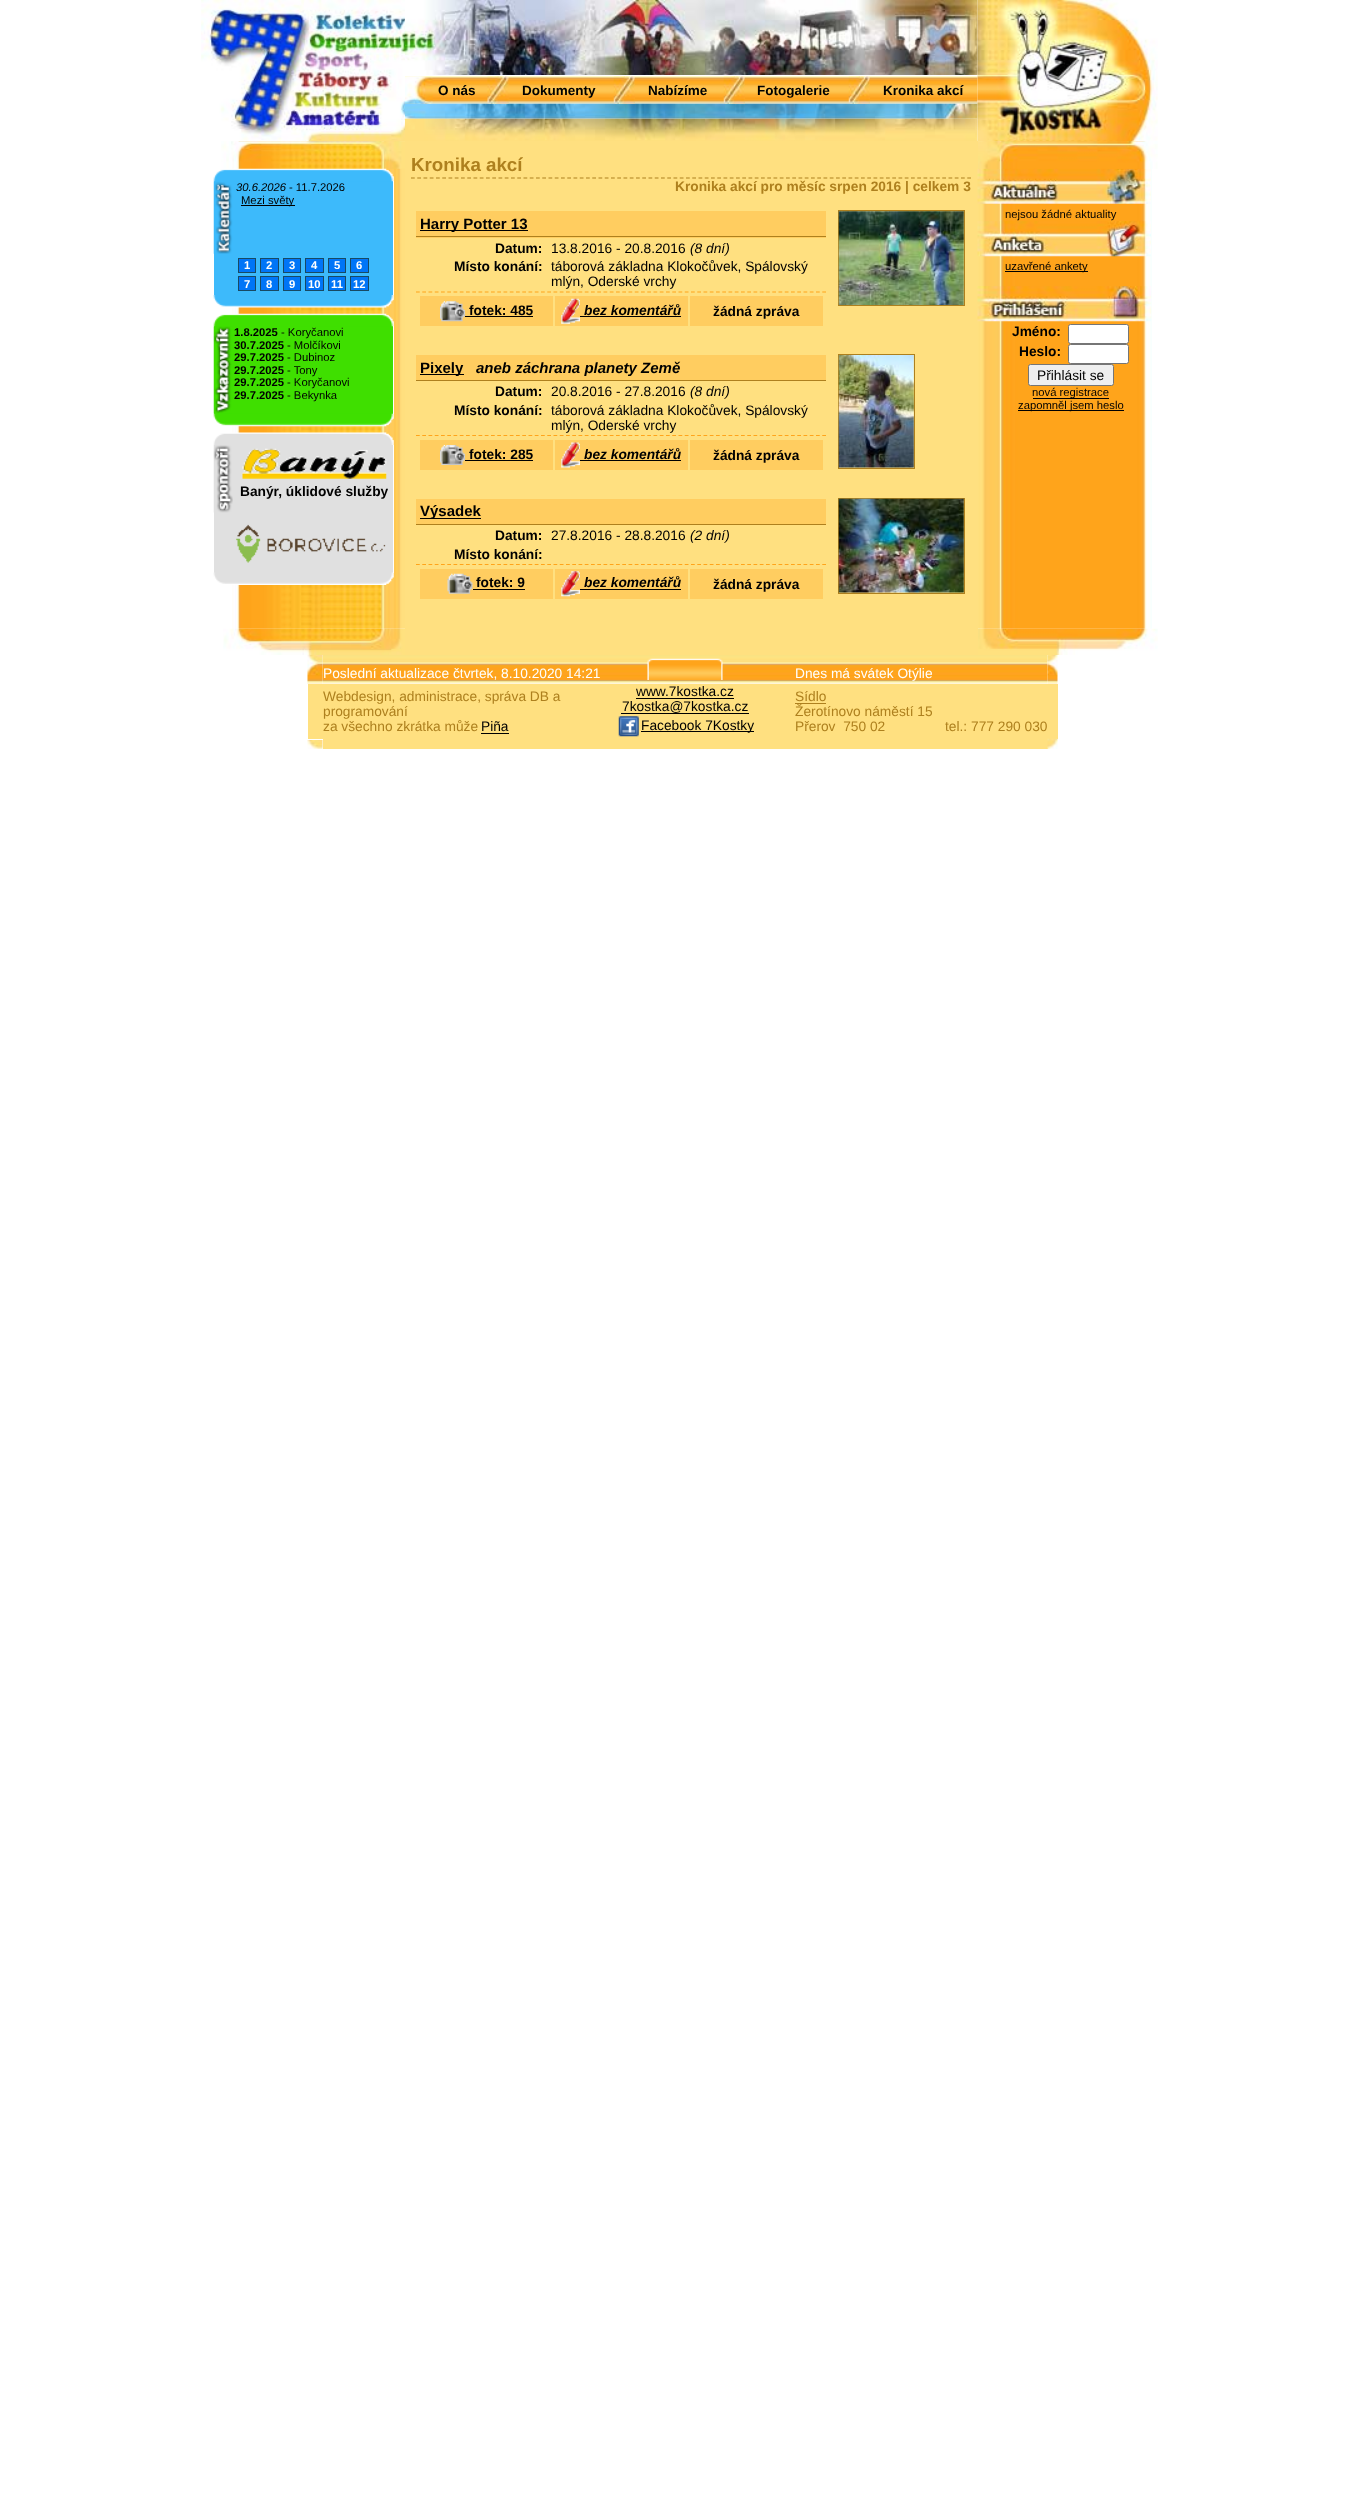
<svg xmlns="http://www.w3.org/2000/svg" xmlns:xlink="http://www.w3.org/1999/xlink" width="1364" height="2503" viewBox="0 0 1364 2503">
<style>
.cls-1{font:bold 13.5px Liberation Sans;fill:#000000}
.cls-2{font:italic 11.25px Liberation Sans;fill:#000000}
.cls-3{font:11.25px Liberation Sans;fill:#000000}
.cls-4{font:bold 11.25px Liberation Sans;fill:#ffffff}
.cls-5{font:bold 11.25px Liberation Sans;fill:#000000}
.cls-6{font:bold 13.75px Liberation Sans;fill:#000000}
.cls-7{font:bold 18.75px Liberation Sans;fill:#ae801e}
.cls-8{font:bold 13.75px Liberation Sans;fill:#ae801e}
.cls-9{font:bold 15px Liberation Sans;fill:#000000}
.cls-10{font:13.75px Liberation Sans;fill:#000000}
.cls-11{font:italic 13.75px Liberation Sans;fill:#000000}
.cls-12{font:italic bold 13.75px Liberation Sans;fill:#000000}
.cls-13{font:italic bold 15px Liberation Sans;fill:#000000}
.cls-14{font:13.75px Liberation Sans;fill:#ffffff}
.cls-15{font:13.75px Liberation Sans;fill:#ae801e}
</style>
<rect width="100%" height="100%" fill="#ffffff"/>
<image xlink:href="image11.png" x="232" y="141" width="173" height="488"/>
<image xlink:href="image0.png" x="201" y="0" width="204" height="142"/>
<image xlink:href="image1.png" x="405" y="0" width="573" height="75"/>
<image xlink:href="image3.png" x="405" y="76" width="573" height="28"/>
<image xlink:href="image9.png" x="405" y="103" width="573" height="16"/>
<rect fill="#ffe080" x="405" y="141" width="573" height="514"/>
<image xlink:href="image33.png" x="978" y="141" width="174" height="488"/>
<image xlink:href="image2.png" x="977" y="0" width="181" height="142"/>
<image xlink:href="image4.png" x="405" y="76" width="28" height="28"/>
<image xlink:href="image5.png" x="487" y="76" width="22" height="28"/>
<image xlink:href="image6.png" x="613" y="76" width="22" height="28"/>
<image xlink:href="image7.png" x="723" y="76" width="22" height="28"/>
<image xlink:href="image8.png" x="848" y="76" width="22" height="28"/>
<image xlink:href="image10.png" x="405" y="118" width="573" height="23"/>
<image xlink:href="image12.png" x="221" y="141" width="184" height="28"/>
<rect fill="#3dbafb" x="214" y="181" width="179" height="114"/>
<rect fill="#ffffff" x="393" y="181" width="1" height="114"/>
<image xlink:href="image14.png" x="213" y="181" width="20" height="73"/>
<image xlink:href="image13.png" x="213" y="168" width="181" height="14"/>
<rect fill="#000000" x="241" y="205" width="54" height="1"/>
<rect fill="#0075f7" stroke="#184a64" x="238.5" y="258.5" width="17" height="14"/>
<rect fill="#0075f7" stroke="#184a64" x="260.5" y="258.5" width="18" height="14"/>
<rect fill="#0075f7" stroke="#184a64" x="283.5" y="258.5" width="17" height="14"/>
<rect fill="#0075f7" stroke="#184a64" x="305.5" y="258.5" width="18" height="14"/>
<rect fill="#0075f7" stroke="#184a64" x="328.5" y="258.5" width="17" height="14"/>
<rect fill="#0075f7" stroke="#184a64" x="350.5" y="258.5" width="18" height="14"/>
<rect fill="#0075f7" stroke="#184a64" x="238.5" y="276.5" width="17" height="14"/>
<rect fill="#0075f7" stroke="#184a64" x="260.5" y="276.5" width="18" height="14"/>
<rect fill="#0075f7" stroke="#184a64" x="283.5" y="276.5" width="17" height="14"/>
<rect fill="#0075f7" stroke="#184a64" x="305.5" y="276.5" width="18" height="14"/>
<rect fill="#0075f7" stroke="#184a64" x="328.5" y="276.5" width="17" height="14"/>
<rect fill="#0075f7" stroke="#184a64" x="350.5" y="276.5" width="18" height="14"/>
<image xlink:href="image15.png" x="213" y="295" width="181" height="13"/>
<rect fill="#3fdf00" x="214" y="326" width="179" height="88"/>
<rect fill="#ffffff" x="393" y="326" width="1" height="88"/>
<image xlink:href="image17.png" x="213" y="326" width="19" height="88"/>
<image xlink:href="image16.png" x="213" y="313" width="181" height="14"/>
<image xlink:href="image18.png" x="213" y="413" width="181" height="14"/>
<image xlink:href="image19.png" x="213" y="432" width="181" height="13"/>
<rect fill="#e0e0e0" x="214" y="445" width="179" height="128"/>
<rect fill="#ffffff" x="393" y="445" width="1" height="128"/>
<image xlink:href="image20.png" x="213" y="445" width="20" height="68"/>
<image xlink:href="image21.png" x="242" y="448" width="145" height="31"/>
<image xlink:href="image22.png" x="236" y="524" width="150" height="39"/>
<image xlink:href="image23.png" x="213" y="572" width="181" height="13"/>
<path fill="none" stroke="#ae801e" stroke-width="1.2" stroke-dasharray="3.75 2.5" d="M411 178H971"/>
<rect fill="#ffcd60" x="416" y="211" width="410" height="27"/>
<rect fill="#ae801e" x="416" y="236" width="410" height="1"/>
<rect fill="#000000" x="420" y="230" width="108" height="1"/>
<path fill="none" stroke="#ffa41b" stroke-width="1.2" stroke-dasharray="3.75 2.5" d="M416 292H826"/>
<rect fill="#ffcd60" x="420" y="296" width="133" height="30"/>
<image xlink:href="image24.png" x="440" y="301" width="25" height="21"/>
<rect fill="#000000" x="465" y="316" width="68" height="1"/>
<rect fill="#ffcd60" x="555" y="296" width="133" height="30"/>
<image xlink:href="image25.png" x="561" y="298" width="19" height="26"/>
<rect fill="#000000" x="580" y="316" width="101" height="1"/>
<rect fill="#ffcd60" x="690" y="296" width="133" height="30"/>
<rect fill="none" stroke="#ae801e" x="838.5" y="210.5" width="126" height="95"/>
<image xlink:href="image26.png" x="838" y="211" width="126" height="94"/>
<rect fill="#ffcd60" x="416" y="355" width="410" height="25"/>
<rect fill="#ae801e" x="416" y="380" width="410" height="1"/>
<rect fill="#000000" x="420" y="374" width="44" height="1"/>
<path fill="none" stroke="#ffa41b" stroke-width="1.2" stroke-dasharray="3.75 2.5" d="M416 435.5H826"/>
<rect fill="#ffcd60" x="420" y="440" width="133" height="30"/>
<image xlink:href="image27.png" x="440" y="445" width="25" height="20"/>
<rect fill="#000000" x="465" y="460" width="68" height="1"/>
<rect fill="#ffcd60" x="555" y="440" width="133" height="30"/>
<image xlink:href="image28.png" x="561" y="442" width="19" height="26"/>
<rect fill="#000000" x="580" y="460" width="101" height="1"/>
<rect fill="#ffcd60" x="690" y="440" width="133" height="30"/>
<rect fill="none" stroke="#ae801e" x="838.5" y="354.5" width="76" height="114"/>
<image xlink:href="image29.png" x="838" y="355" width="76" height="113"/>
<rect fill="#ffcd60" x="416" y="499" width="410" height="25"/>
<rect fill="#ae801e" x="416" y="524" width="410" height="1"/>
<rect fill="#000000" x="420" y="518" width="61" height="1"/>
<path fill="none" stroke="#ffa41b" stroke-width="1.2" stroke-dasharray="3.75 2.5" d="M416 564.5H826"/>
<rect fill="#ffcd60" x="420" y="569" width="133" height="30"/>
<image xlink:href="image30.png" x="447" y="573" width="26" height="21"/>
<rect fill="#000000" x="473" y="589" width="52" height="1"/>
<rect fill="#ffcd60" x="555" y="569" width="133" height="30"/>
<image xlink:href="image31.png" x="561" y="571" width="19" height="26"/>
<rect fill="#000000" x="580" y="589" width="101" height="1"/>
<rect fill="#ffcd60" x="690" y="569" width="133" height="30"/>
<rect fill="none" stroke="#ae801e" x="838.5" y="498.5" width="126" height="95"/>
<image xlink:href="image32.png" x="838" y="498" width="126" height="95"/>
<image xlink:href="image35.png" x="977" y="168" width="174" height="36"/>
<image xlink:href="image34.png" x="978" y="141" width="180" height="28"/>
<image xlink:href="image36.png" x="977" y="221" width="174" height="36"/>
<rect fill="#000000" x="1005" y="271" width="83" height="1"/>
<image xlink:href="image37.png" x="977" y="286" width="175" height="36"/>
<rect fill="#ffffff" stroke="#767676" x="1068.5" y="324.5" width="60" height="19" rx="2"/>
<rect fill="#ffffff" stroke="#767676" x="1068.5" y="344.5" width="60" height="19" rx="2"/>
<rect fill="#efefef" stroke="#767676" x="1028.5" y="364.5" width="85" height="21" rx="2"/>
<rect fill="#000000" x="1033" y="398" width="76" height="1"/>
<rect fill="#000000" x="1018" y="410" width="106" height="1"/>
<image xlink:href="image38.png" x="223" y="628" width="182" height="27"/>
<image xlink:href="image39.png" x="978" y="628" width="180" height="27"/>
<image xlink:href="image41.png" x="322" y="655" width="726" height="29"/>
<image xlink:href="image40.png" x="307" y="655" width="16" height="29"/>
<image xlink:href="image42.png" x="647" y="658" width="76" height="22"/>
<image xlink:href="image43.png" x="1047" y="655" width="11" height="29"/>
<rect fill="#ffe080" x="308" y="684" width="750" height="55"/>
<rect fill="#000000" x="481" y="733" width="28" height="1"/>
<rect fill="#000000" x="636" y="698" width="98" height="1"/>
<rect fill="#000000" x="621" y="713" width="128" height="1"/>
<image xlink:href="image44.png" x="618" y="716" width="21" height="21"/>
<rect fill="#000000" x="641" y="731" width="113" height="1"/>
<rect fill="#ae801e" x="795" y="703" width="31" height="1"/>
<image xlink:href="image45.png" x="307" y="740" width="16" height="9"/>
<rect fill="#ffe080" x="323" y="739" width="725" height="10"/>
<image xlink:href="image46.png" x="1047" y="738" width="11" height="11"/>
<text class="cls-1" x="438" y="95">O nás</text>
<text class="cls-1" x="522" y="95">Dokumenty</text>
<text class="cls-1" x="648" y="95">Nabízíme</text>
<text class="cls-1" x="757" y="95">Fotogalerie</text>
<text class="cls-1" x="883" y="95">Kronika akcí</text>
<text class="cls-2" x="236" y="191">30.6.2026</text>
<text class="cls-3" x="289" y="191">- 11.7.2026</text>
<text class="cls-3" x="241" y="204">Mezi světy</text>
<text class="cls-4" x="244" y="269">1</text>
<text class="cls-4" x="266" y="269">2</text>
<text class="cls-4" x="289" y="269">3</text>
<text class="cls-4" x="311" y="269">4</text>
<text class="cls-4" x="334" y="269">5</text>
<text class="cls-4" x="356" y="269">6</text>
<text class="cls-4" x="244" y="288">7</text>
<text class="cls-4" x="266" y="288">8</text>
<text class="cls-4" x="289" y="288">9</text>
<text class="cls-4" x="308" y="288">10</text>
<text class="cls-4" x="331" y="288">11</text>
<text class="cls-4" x="353" y="288">12</text>
<text class="cls-5" x="234" y="336">1.8.2025</text>
<text class="cls-3" x="281" y="336">- Koryčanovi</text>
<text class="cls-5" x="234" y="349">30.7.2025</text>
<text class="cls-3" x="287" y="349">- Molčíkovi</text>
<text class="cls-5" x="234" y="361">29.7.2025</text>
<text class="cls-3" x="287" y="361">- Dubinoz</text>
<text class="cls-5" x="234" y="374">29.7.2025</text>
<text class="cls-3" x="287" y="374">- Tony</text>
<text class="cls-5" x="234" y="386">29.7.2025</text>
<text class="cls-3" x="287" y="386">- Koryčanovi</text>
<text class="cls-5" x="234" y="399">29.7.2025</text>
<text class="cls-3" x="287" y="399">- Bekynka</text>
<text class="cls-6" x="240" y="496">Banýr, úklidové služby</text>
<text class="cls-7" x="411" y="171">Kronika akcí</text>
<text class="cls-8" x="675" y="191">Kronika akcí pro měsíc srpen 2016 | celkem 3</text>
<text class="cls-9" x="420" y="229">Harry Potter 13</text>
<text class="cls-6" x="495" y="253">Datum:</text>
<text class="cls-10" x="551" y="253">13.8.2016 - 20.8.2016</text>
<text class="cls-11" x="690" y="253">(8 dní)</text>
<text class="cls-6" x="454" y="271">Místo konání:</text>
<text class="cls-10"><tspan x="551" y="271">táborová základna Klokočůvek, Spálovský</tspan><tspan x="551" y="286">mlýn, Oderské vrchy</tspan></text>
<text class="cls-6" x="469" y="315">fotek: 485</text>
<text class="cls-12" x="584" y="315">bez komentářů</text>
<text class="cls-6" x="713" y="316">žádná zpráva</text>
<text class="cls-9" x="420" y="373">Pixely</text>
<text class="cls-13" x="476" y="373">aneb záchrana planety Země</text>
<text class="cls-6" x="495" y="396">Datum:</text>
<text class="cls-10" x="551" y="396">20.8.2016 - 27.8.2016</text>
<text class="cls-11" x="690" y="396">(8 dní)</text>
<text class="cls-6" x="454" y="415">Místo konání:</text>
<text class="cls-10"><tspan x="551" y="415">táborová základna Klokočůvek, Spálovský</tspan><tspan x="551" y="430">mlýn, Oderské vrchy</tspan></text>
<text class="cls-6" x="469" y="459">fotek: 285</text>
<text class="cls-12" x="584" y="459">bez komentářů</text>
<text class="cls-6" x="713" y="460">žádná zpráva</text>
<text class="cls-9" x="420" y="516">Výsadek</text>
<text class="cls-6" x="495" y="540">Datum:</text>
<text class="cls-10" x="551" y="540">27.8.2016 - 28.8.2016</text>
<text class="cls-11" x="690" y="540">(2 dní)</text>
<text class="cls-6" x="454" y="559">Místo konání:</text>
<text class="cls-6" x="476" y="587">fotek: 9</text>
<text class="cls-12" x="584" y="587">bez komentářů</text>
<text class="cls-6" x="713" y="589">žádná zpráva</text>
<text class="cls-3" x="1005" y="218">nejsou žádné aktuality</text>
<text class="cls-3" x="1005" y="270">uzavřené ankety</text>
<text class="cls-6" x="1012" y="336">Jméno:</text>
<text class="cls-6" x="1019" y="356">Heslo:</text>
<text class="cls-10" x="1037" y="380">Přihlásit se</text>
<text class="cls-3" x="1032" y="396">nová registrace</text>
<text class="cls-3" x="1018" y="409">zapomněl jsem heslo</text>
<text class="cls-14" x="323" y="678">Poslední aktualizace čtvrtek, 8.10.2020 14:21</text>
<text class="cls-14" x="795" y="678">Dnes má svátek Otýlie</text>
<text class="cls-15"><tspan x="323" y="701">Webdesign, administrace, správa DB a</tspan><tspan x="323" y="716">programování</tspan><tspan x="323" y="731">za všechno zkrátka může</tspan></text>
<text class="cls-10" x="481" y="731">Piña</text>
<text class="cls-10" x="636" y="696">www.7kostka.cz</text>
<text class="cls-10" x="622" y="711">7kostka@7kostka.cz</text>
<text class="cls-10" x="641" y="730">Facebook 7Kostky</text>
<text class="cls-15" xml:space="preserve"><tspan x="795" y="701">Sídlo</tspan><tspan x="795" y="716">Žerotínovo náměstí 15</tspan><tspan x="795" y="731">Přerov  750 02</tspan></text>
<text class="cls-15" x="945" y="731">tel.: 777 290 030</text>
</svg>
